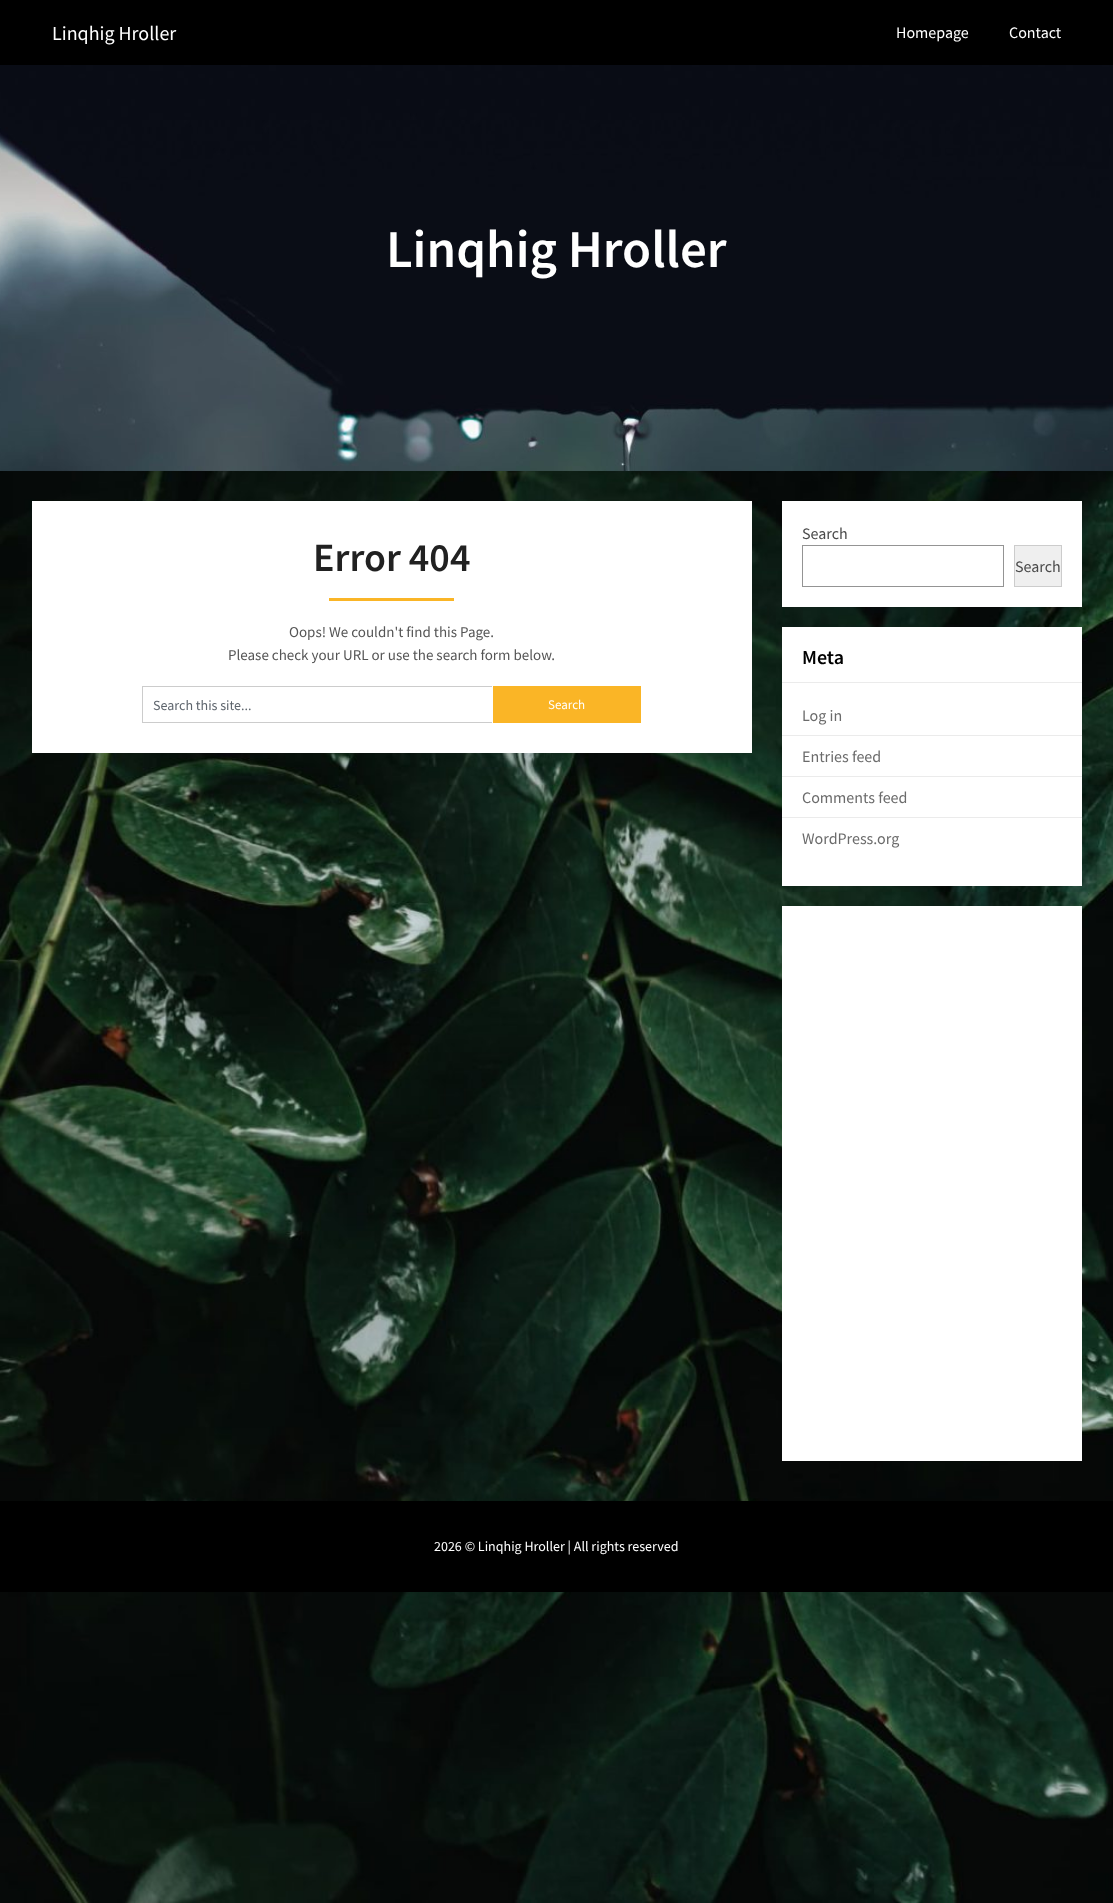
<svg xmlns="http://www.w3.org/2000/svg" xmlns:xlink="http://www.w3.org/1999/xlink" width="1113" height="1903" viewBox="0 0 1113 1903">
<style>
.cls-1{font:20px Source Sans Pro;fill:#ffffff}
.cls-2{font:16px Source Sans Pro;fill:#ffffff}
.cls-3{font:600 53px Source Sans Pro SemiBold;fill:#ffffff}
.cls-4{font:600 40px Source Sans Pro SemiBold;fill:#212121}
.cls-5{font:15px Source Sans Pro;fill:#555555}
.cls-6{font:14px Source Sans Pro;fill:#5e656d}
.cls-7{font:13px Source Sans Pro;fill:#ffffff}
.cls-8{font:16px Source Sans Pro;fill:#4a4a4a}
.cls-9{font:600 20px Source Sans Pro SemiBold;fill:#000000}
.cls-10{font:16px Source Sans Pro;fill:#6b6b6b}
.cls-11{font:14px Source Sans Pro;fill:#ffffff}
</style>
<rect width="100%" height="100%" fill="#ffffff"/>
<image xlink:href="image0.png" x="0" y="471" width="1113" height="1432"/>
<image xlink:href="image1.png" x="0" y="65" width="1113" height="406"/>
<rect fill="#000000" x="0" y="0" width="1113" height="65"/>
<rect fill="#ffffff" x="32" y="501" width="720" height="252"/>
<rect fill="#fab526" x="329" y="598" width="125" height="3"/>
<rect fill="#cccccc" x="142" y="686" width="350" height="1"/>
<rect fill="#cccccc" x="142" y="722" width="350" height="1"/>
<rect fill="#cccccc" x="142" y="686" width="1" height="37"/>
<rect fill="#fab526" x="493" y="686" width="148" height="37"/>
<rect fill="#ffffff" x="782" y="501" width="300" height="106"/>
<rect fill="none" stroke="#949494" x="802.5" y="545.5" width="201" height="41"/>
<rect fill="#efefef" stroke="#cccccc" x="1014.5" y="545.5" width="47" height="41"/>
<rect fill="#ffffff" x="782" y="627" width="300" height="259"/>
<rect fill="#ebebeb" x="782" y="682" width="300" height="1"/>
<rect fill="#ebebeb" x="782" y="735" width="300" height="1"/>
<rect fill="#ebebeb" x="782" y="776" width="300" height="1"/>
<rect fill="#ebebeb" x="782" y="817" width="300" height="1"/>
<rect fill="#ffffff" x="782" y="906" width="300" height="555"/>
<rect fill="#000000" x="0" y="1501" width="1113" height="91"/>
<text class="cls-1" x="52" y="40">Linqhig Hroller</text>
<text class="cls-2" x="896" y="38">Homepage</text>
<text class="cls-2" x="1009" y="38">Contact</text>
<text class="cls-3" x="386" y="267">Linqhig Hroller</text>
<text class="cls-4" x="313" y="571">Error 404</text>
<text class="cls-5" x="289" y="637">Oops! We couldn't find this Page.</text>
<text class="cls-5" x="228" y="660">Please check your URL or use the search form below.</text>
<text class="cls-6" x="153" y="710">Search this site...</text>
<text class="cls-7" x="548" y="709">Search</text>
<text class="cls-8" x="802" y="539">Search</text>
<text class="cls-8" x="1015" y="572">Search</text>
<text class="cls-9" x="802" y="664">Meta</text>
<text class="cls-10" x="802" y="721">Log in</text>
<text class="cls-10" x="802" y="762">Entries feed</text>
<text class="cls-10" x="802" y="803">Comments feed</text>
<text class="cls-10" x="802" y="844">WordPress.org</text>
<text class="cls-11" x="434" y="1551">2026 © Linqhig Hroller | All rights reserved</text>
</svg>
